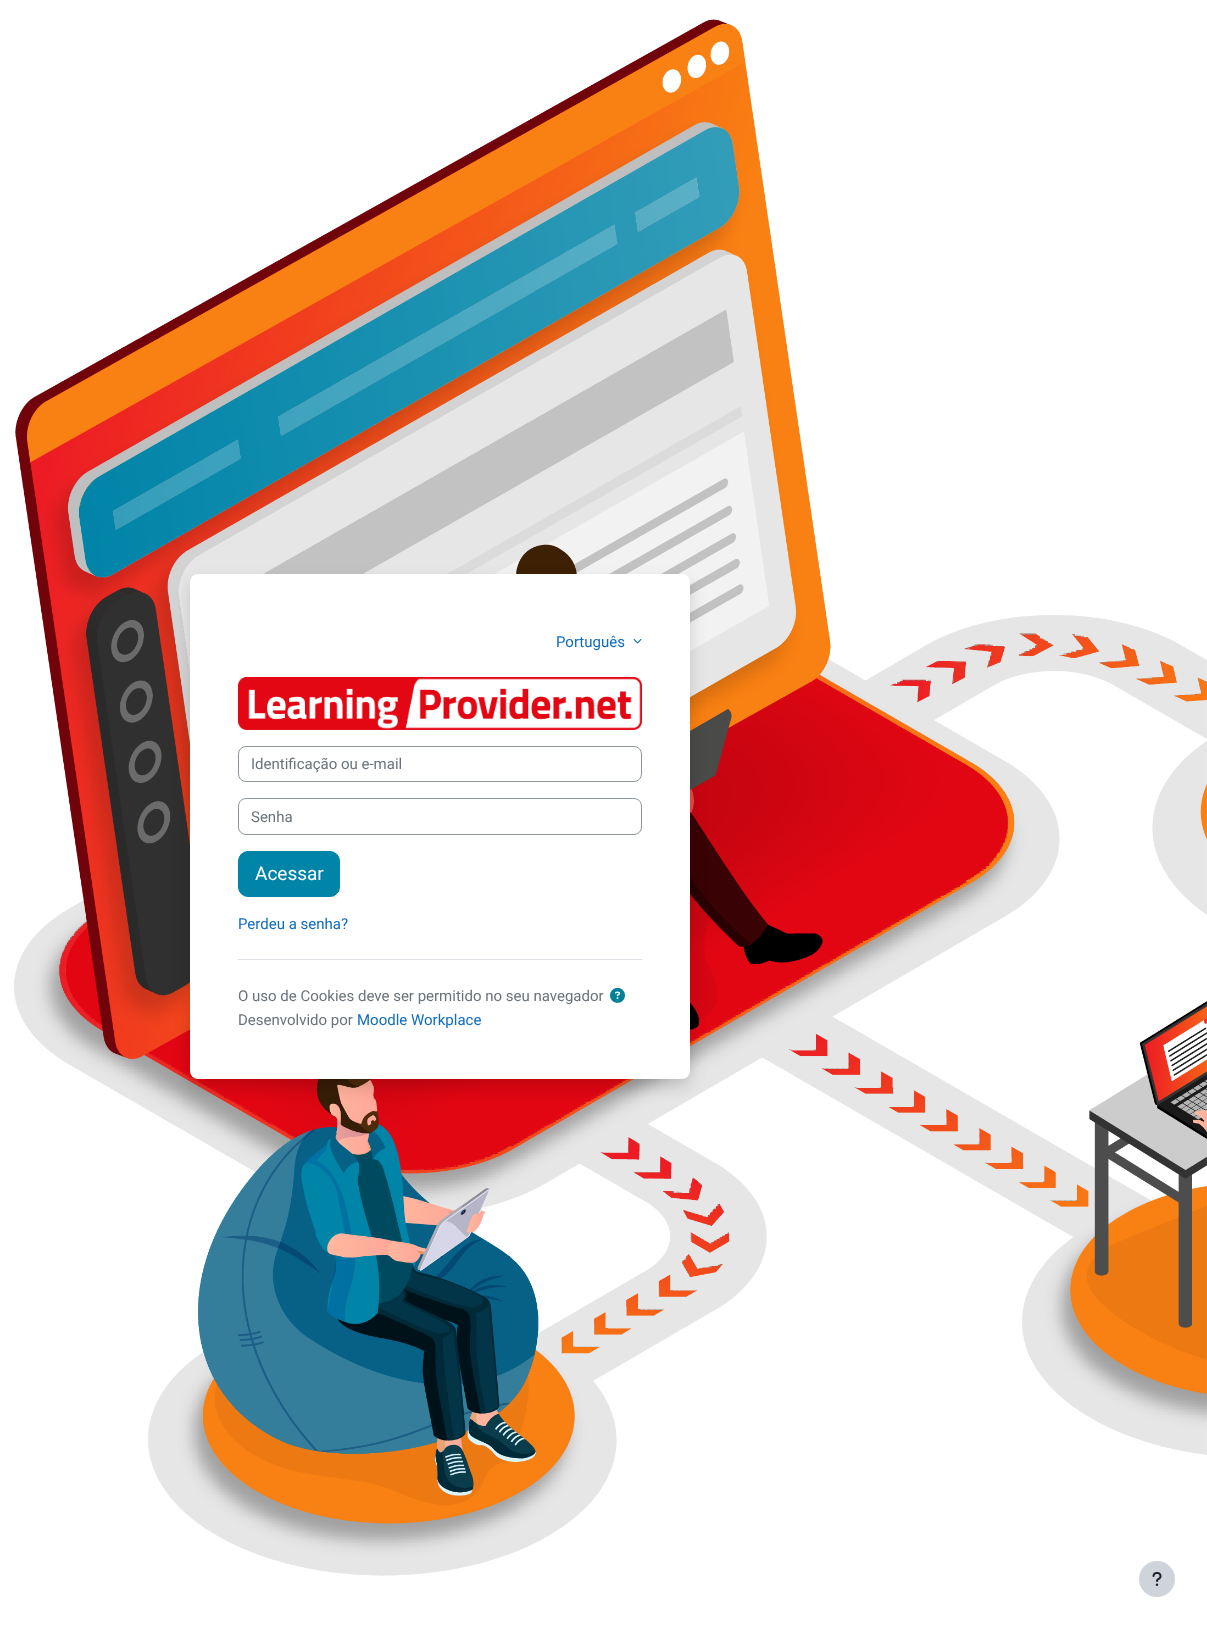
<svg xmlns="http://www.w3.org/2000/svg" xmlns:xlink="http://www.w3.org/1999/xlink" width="1207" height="1629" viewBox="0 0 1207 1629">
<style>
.cls-1{font:15px Roboto;fill:#0f6cbf}
.cls-2{font:15px Roboto;fill:#6a737b}
.cls-3{font:19px Roboto;fill:#ffffff}
</style>
<rect width="100%" height="100%" fill="#ffffff"/>
<image xlink:href="image0.png" x="14" y="19" width="1193" height="1557"/>
<rect fill="#000000" fill-opacity="0.15" filter="blur(8px)" x="190" y="582" width="500" height="505" rx="8"/>
<rect fill="#ffffff" x="190" y="574" width="500" height="505" rx="8"/>
<image xlink:href="image1.png" x="633" y="639" width="9" height="5"/>
<image xlink:href="image2.png" x="238" y="677" width="404" height="53"/>
<rect fill="none" stroke="#8f959e" x="238.5" y="746.5" width="403" height="35" rx="7.5"/>
<rect fill="none" stroke="#8f959e" x="238.5" y="798.5" width="403" height="36" rx="7.5"/>
<rect fill="#0084a8" stroke="#0084a8" x="238.5" y="851.5" width="101" height="45" rx="9.5"/>
<rect fill="#dee2e6" x="238" y="959" width="404" height="1"/>
<image xlink:href="image3.png" x="610" y="987" width="15" height="16"/>
<circle fill="#ced4da" cx="1157" cy="1579" r="18"/>
<image xlink:href="image4.png" x="1152" y="1572" width="10" height="14"/>
<text class="cls-1" x="556" y="647">Português</text>
<text class="cls-2" x="251" y="769">Identificação ou e-mail</text>
<text class="cls-2" x="251" y="822">Senha</text>
<text class="cls-3" x="255" y="880">Acessar</text>
<text class="cls-1" x="238" y="929">Perdeu a senha?</text>
<text class="cls-2"><tspan x="238" y="1001">O uso de Cookies deve ser permitido no seu navegador</tspan><tspan x="238" y="1025">Desenvolvido por</tspan></text>
<text class="cls-1" x="357" y="1025">Moodle Workplace</text>
</svg>
